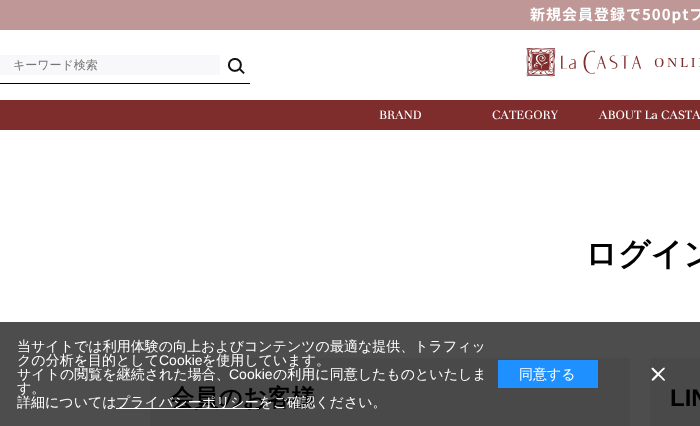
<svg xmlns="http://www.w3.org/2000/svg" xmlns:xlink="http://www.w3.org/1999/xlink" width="700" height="426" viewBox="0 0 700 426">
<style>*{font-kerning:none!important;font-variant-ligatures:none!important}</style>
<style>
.cls-1{font:bold 15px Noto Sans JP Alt;letter-spacing:1px;fill:#ffffff}
.cls-2{font:500 12px WenQuanYi Zen Hei;fill:#757575}
.cls-3{font:14px Unna;fill:#ffffff}
.cls-4{font:bold 32px WenQuanYi Zen Hei;fill:#000000}
.cls-5{font:bold 24px WenQuanYi Zen Hei;fill:#000000}
.cls-6{font:bold 24px Liberation Sans;fill:#000000}
.cls-7{font:500 14px WenQuanYi Zen Hei;fill:#ffffff}
.cls-8{font:14px Liberation Sans;fill:#ffffff}
</style>
<rect width="100%" height="100%" fill="#ffffff"/>
<rect fill="#4d4d4d" x="0" y="322" width="700" height="104"/>
<rect fill="#be9796" x="0" y="0" width="700" height="30"/>
<rect fill="#000000" x="0" y="83" width="250" height="1"/>
<rect fill="#f8f8fb" x="0" y="55" width="220" height="20"/>
<image xlink:href="image0.png" x="228" y="58" width="17" height="16"/>
<image xlink:href="image1.png" x="526" y="48" width="174" height="29"/>
<rect fill="#7e2c2c" x="0" y="100" width="700" height="30"/>
<rect fill="#494949" x="150" y="358" width="480" height="68"/>
<rect fill="#494949" x="650" y="358" width="50" height="68"/>
<rect fill="#1e90ff" x="498" y="360" width="100" height="28"/>
<path fill="#ffffff" d="M653.5 368C654.5 369.5 665 379 665 380C664.5 382 662.5 380 661.5 378.5L655.5 373C655 372.5 651 369.5 651.5 368C652 367.5 653 367.5 653.5 368Z"/>
<path fill="#ffffff" d="M652 379C653.5 377.5 663 367.5 664 367.5C666 368 664 370 662.5 371L657 377C656.5 377.5 653.5 381.5 652 380.5C651.5 380.5 651.5 379.5 652 379Z"/>
<text class="cls-1" x="530" y="20">新規会員登録で500ptプ</text>
<text class="cls-2" x="13" y="69">キーワード検索</text>
<text class="cls-3" x="379" y="119">BRAND</text>
<text class="cls-3" x="492" y="119">CATEGORY</text>
<text class="cls-3" x="599" y="119">ABOUT La CASTA</text>
<text class="cls-4" x="585" y="265">ログイン</text>
<text class="cls-5" x="170" y="406">会員のお客様</text>
<text class="cls-6" x="670" y="406">LIN</text>
<text class="cls-7"><tspan x="17" y="351">当サイトでは利用体験の向上およびコンテンツの最適な提供、トラフィッ</tspan><tspan x="17" y="365">クの分析を目的として</tspan></text>
<text class="cls-8" x="159" y="365">Cookie</text>
<text class="cls-7" x="202" y="365">を使用しています。</text>
<text class="cls-7" x="17" y="379">サイトの閲覧を継続された場合、</text>
<text class="cls-8" x="229" y="379">Cookie</text>
<text class="cls-7" x="273" y="379">の利用に同意したものといたしま</text>
<text class="cls-7"><tspan x="17" y="393">す。</tspan><tspan x="17" y="407">詳細については</tspan></text>
<rect fill="#ffffff" x="116" y="408" width="143" height="1"/>
<text class="cls-7" x="116" y="407">プライバシーポリシーをご確認ください。</text>
<text class="cls-7" x="519" y="379">同意する</text>
</svg>
